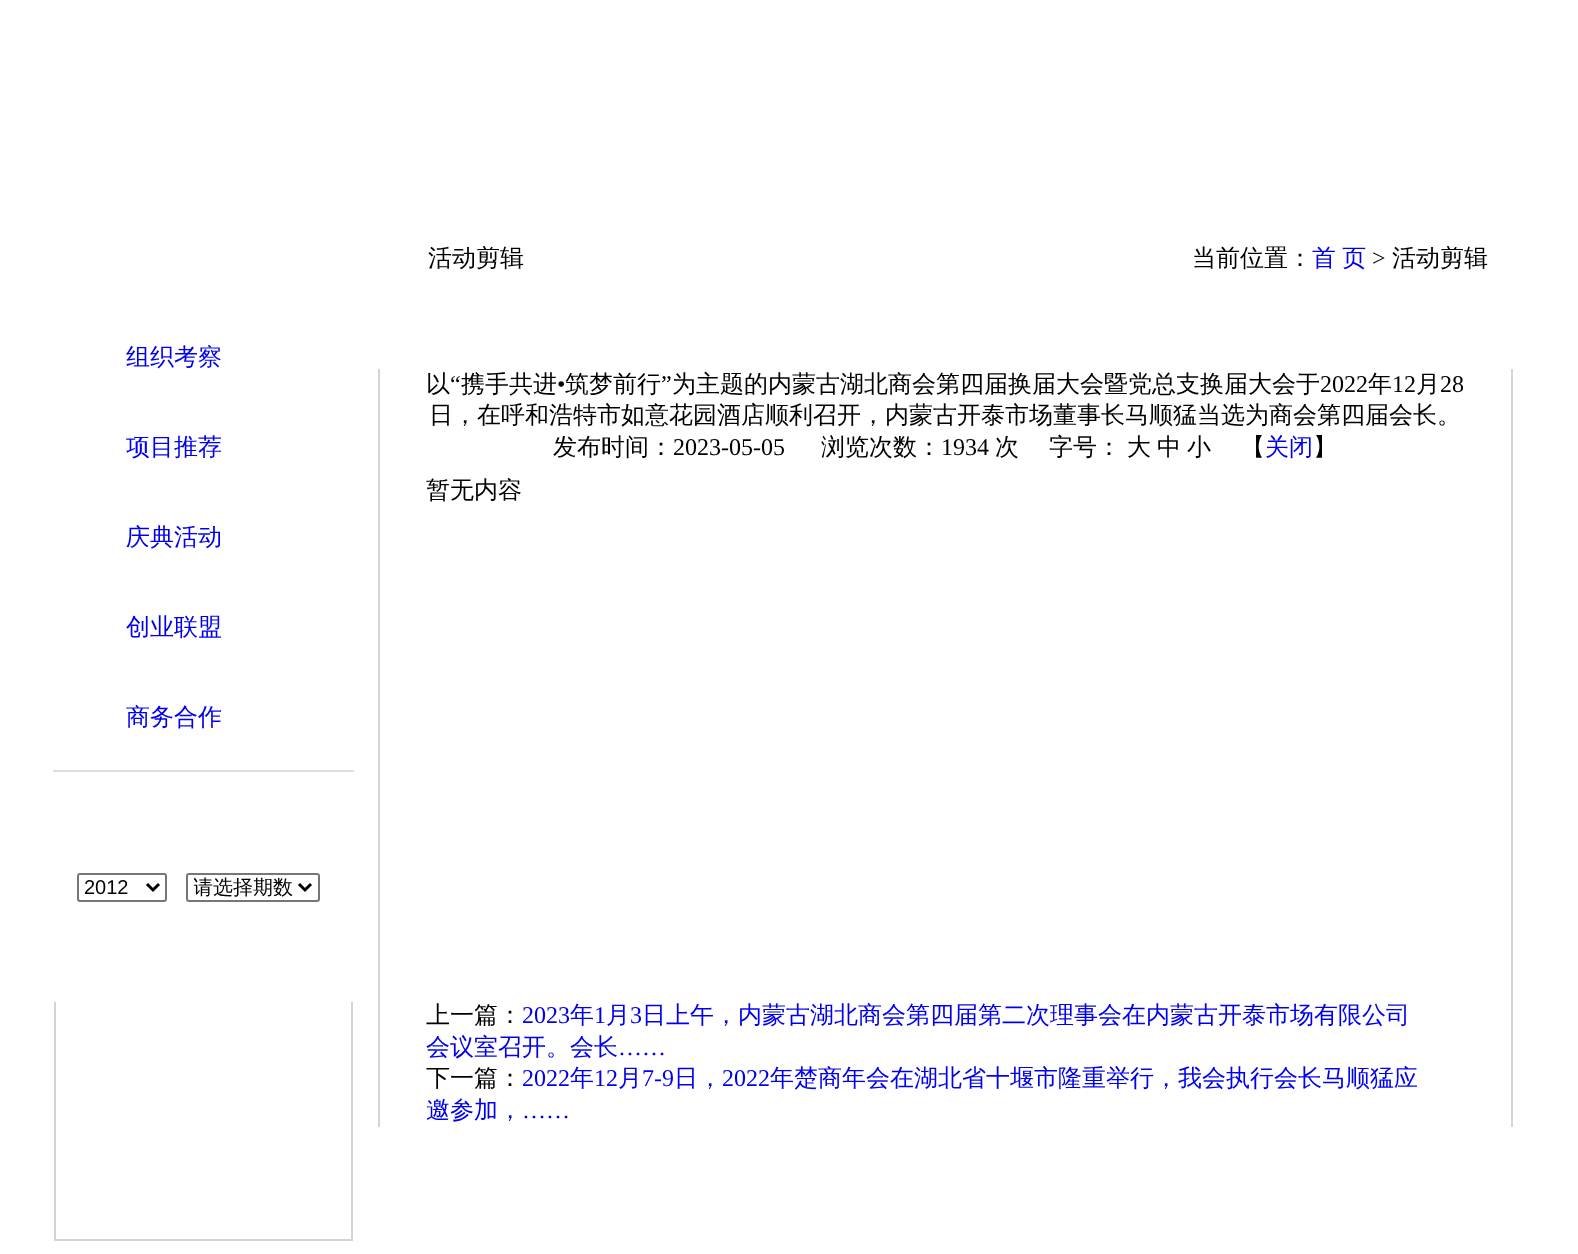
<svg xmlns="http://www.w3.org/2000/svg" xmlns:xlink="http://www.w3.org/1999/xlink" width="1578" height="1254" viewBox="0 0 1578 1254">
<style>
.cls-1{font:500 24px WenQuanYi Zen Hei;fill:#0000ee}
.cls-2{font:20px Liberation Sans;fill:#000000}
.cls-3{font:500 20px WenQuanYi Zen Hei;fill:#000000}
.cls-4{font:500 24px WenQuanYi Zen Hei;fill:#000000}
.cls-5{font:24px Liberation Serif;fill:#000000}
.cls-6{font:24px Liberation Serif;fill:#0000ee}
</style>
<defs>
<clipPath id="clip1"><rect x="194" y="875" width="100" height="25"/></clipPath>
</defs>
<rect width="100%" height="100%" fill="#ffffff"/>
<rect fill="#dfdfdf" x="53" y="770" width="301" height="2"/>
<rect fill="none" stroke="#767676" stroke-width="2" x="78" y="874" width="88" height="27" rx="2"/>
<path fill="none" stroke="#000000" stroke-width="3" d="M147 884L153 890L159 884"/>
<rect fill="none" stroke="#767676" stroke-width="2" x="187" y="874" width="132" height="27" rx="2"/>
<path fill="none" stroke="#000000" stroke-width="3" d="M299 884L305 890L311 884"/>
<rect fill="#d4d4d4" x="351" y="1002" width="2" height="239"/>
<rect fill="#d4d4d4" x="54" y="1239" width="299" height="2"/>
<rect fill="#d4d4d4" x="54" y="1002" width="2" height="239"/>
<rect fill="#d4d4d4" x="1511" y="369" width="2" height="758"/>
<rect fill="#d4d4d4" x="378" y="369" width="2" height="758"/>
<text class="cls-1" x="126" y="365">组织考察</text>
<text class="cls-1" x="126" y="455">项目推荐</text>
<text class="cls-1" x="126" y="545">庆典活动</text>
<text class="cls-1" x="126" y="635">创业联盟</text>
<text class="cls-1" x="126" y="725">商务合作</text>
<text class="cls-2" x="84" y="894">2012</text>
<g clip-path="url(#clip1)">
<text class="cls-3" x="193" y="894">请选择期数</text>
</g>
<text class="cls-4" x="428" y="266">活动剪辑</text>
<text class="cls-4" x="1192" y="266">当前位置：</text>
<text class="cls-1" x="1312" y="266" word-spacing="-1">首 页</text>
<text class="cls-5" x="1372" y="266">&gt;</text>
<text class="cls-4" x="1392" y="266">活动剪辑</text>
<text class="cls-4" x="426" y="392">以</text>
<text class="cls-5" x="450" y="392">“</text>
<text class="cls-4" x="461" y="392">携手共进</text>
<text class="cls-5" x="557" y="392">•</text>
<text class="cls-4" x="565" y="392">筑梦前行</text>
<text class="cls-5" x="661" y="392">”</text>
<text class="cls-4" x="672" y="392">为主题的内蒙古湖北商会第四届换届大会暨党总支换届大会于</text>
<text class="cls-5" x="1320" y="392">2022</text>
<text class="cls-4" x="1368" y="392">年</text>
<text class="cls-5" x="1392" y="392">12</text>
<text class="cls-4" x="1416" y="392">月</text>
<text class="cls-5" x="1440" y="392">28</text>
<text class="cls-4" x="429" y="423">日，在呼和浩特市如意花园酒店顺利召开，内蒙古开泰市场董事长马顺猛当选为商会第四届会长。</text>
<text class="cls-4" x="553" y="455">发布时间：</text>
<text class="cls-5" x="673" y="455">2023-05-05</text>
<text class="cls-4" x="821" y="455">浏览次数：</text>
<text class="cls-5" x="941" y="455">1934</text>
<text class="cls-4" x="995" y="455">次</text>
<text class="cls-4" x="1049" y="455">字号：</text>
<text class="cls-4" x="1127" y="455">大</text>
<text class="cls-4" x="1157" y="455">中</text>
<text class="cls-4" x="1187" y="455">小</text>
<text class="cls-4" x="1241" y="455">【</text>
<text class="cls-1" x="1265" y="455">关闭</text>
<text class="cls-4" x="1313" y="455">】</text>
<text class="cls-4" x="426" y="498">暂无内容</text>
<text class="cls-4" x="426" y="1023">上一篇：</text>
<text class="cls-6" x="522" y="1023">2023</text>
<text class="cls-1" x="570" y="1023">年</text>
<text class="cls-6" x="594" y="1023">1</text>
<text class="cls-1" x="606" y="1023">月</text>
<text class="cls-6" x="630" y="1023">3</text>
<text class="cls-1" x="642" y="1023">日上午，内蒙古湖北商会第四届第二次理事会在内蒙古开泰市场有限公司</text>
<text class="cls-1" x="426" y="1055">会议室召开。会长</text>
<text class="cls-6" x="618" y="1055">……</text>
<text class="cls-4" x="426" y="1086">下一篇：</text>
<text class="cls-6" x="522" y="1086">2022</text>
<text class="cls-1" x="570" y="1086">年</text>
<text class="cls-6" x="594" y="1086">12</text>
<text class="cls-1" x="618" y="1086">月</text>
<text class="cls-6" x="642" y="1086">7-9</text>
<text class="cls-1" x="674" y="1086">日，</text>
<text class="cls-6" x="722" y="1086">2022</text>
<text class="cls-1" x="770" y="1086">年楚商年会在湖北省十堰市隆重举行，我会执行会长马顺猛应</text>
<text class="cls-1" x="426" y="1118">邀参加，</text>
<text class="cls-6" x="522" y="1118">……</text>
</svg>
